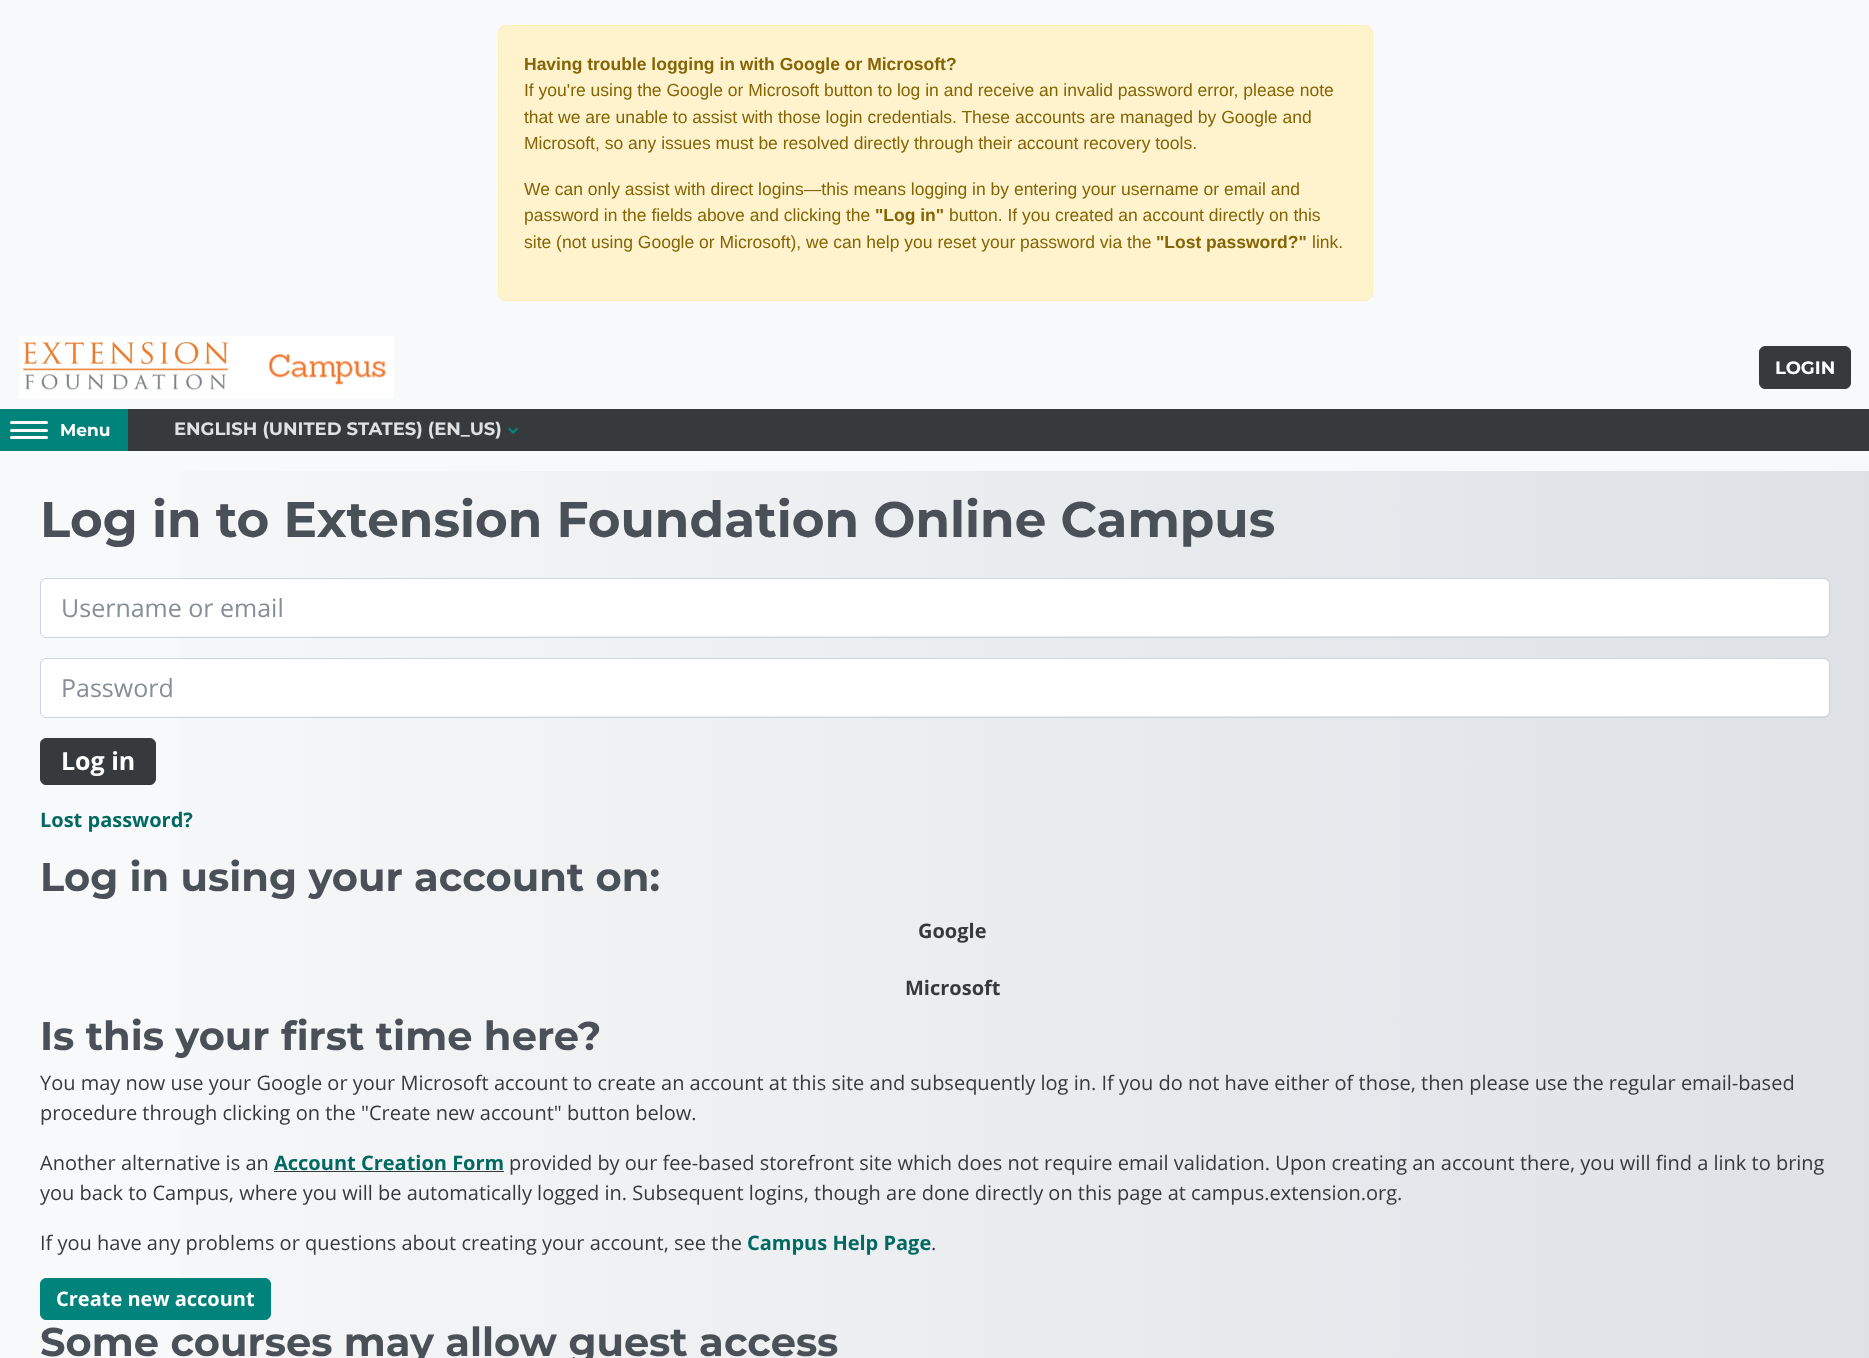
<svg xmlns="http://www.w3.org/2000/svg" xmlns:xlink="http://www.w3.org/1999/xlink" width="1869" height="1358" viewBox="0 0 1869 1358">
<style>
.cls-1{font:bold 17.5px Liberation Sans;fill:#856404}
.cls-2{font:17.5px Liberation Sans;fill:#856404}
.cls-3{font:bold 18px Montserrat;fill:#ffffff}
.cls-4{font:bold 17px Montserrat;fill:#ffffff}
.cls-5{font:bold 18px Montserrat;fill:#e1e1e2}
.cls-6{font:bold 50px Montserrat;fill:#495057}
.cls-7{font:25px Open Sans;fill:#868e96}
.cls-8{font:bold 25px Open Sans;fill:#ffffff}
.cls-9{font:bold 20px Open Sans;fill:#006a62}
.cls-10{font:bold 40px Montserrat;fill:#495057}
.cls-11{font:bold 20px Open Sans;fill:#373a3c}
.cls-12{font:20px Open Sans;fill:#373a3c}
.cls-13{font:bold 20px Open Sans;fill:#ffffff}
</style>
<defs>
<linearGradient id="g1" gradientUnits="userSpaceOnUse" x1="0" y1="975" x2="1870" y2="975"><stop offset="0" stop-color="#f8f9fa"/><stop offset="1" stop-color="#dee2e6"/></linearGradient>
</defs>
<rect width="100%" height="100%" fill="#f8f9fa"/>
<rect fill="#fff3cd" stroke="#ffeeba" x="498.5" y="25.5" width="874" height="275" rx="7.5"/>
<image xlink:href="image0.png" x="19" y="336" width="375" height="63"/>
<rect fill="#373a3c" stroke="#373a3c" x="1759.5" y="346.5" width="91" height="42" rx="5.5"/>
<rect fill="#373a3c" x="128" y="409" width="1741" height="42"/>
<rect fill="#00837a" x="0" y="409" width="128" height="42"/>
<rect fill="#ffffff" x="10" y="421" width="38" height="3" rx="1.5"/>
<rect fill="#ffffff" x="10" y="429" width="38" height="3" rx="1.5"/>
<rect fill="#ffffff" x="10" y="436" width="38" height="3" rx="1.5"/>
<image xlink:href="image1.png" x="508" y="427" width="11" height="7"/>
<rect fill="url(#g1)" x="180" y="471" width="1689" height="887"/>
<rect fill="#ffffff" x="41" y="579" width="1788" height="57" rx="5"/>
<rect fill="none" stroke="#ced4da" x="40.5" y="578.5" width="1789" height="59" rx="5.5"/>
<rect fill="#ffffff" x="41" y="659" width="1788" height="57" rx="5"/>
<rect fill="none" stroke="#ced4da" x="40.5" y="658.5" width="1789" height="59" rx="5.5"/>
<rect fill="#373a3c" stroke="#373a3c" x="40.5" y="738.5" width="115" height="46" rx="5.5"/>
<rect fill="#373a3c" x="274" y="1171" width="230" height="1"/>
<rect fill="#00837a" stroke="#00837a" x="40.5" y="1278.5" width="230" height="41" rx="5.5"/>
<text class="cls-1" x="524" y="70">Having trouble logging in with Google or Microsoft?</text>
<text class="cls-2"><tspan x="524" y="96">If you're using the Google or Microsoft button to log in and receive an invalid password error, please note</tspan><tspan x="524" y="123">that we are unable to assist with those login credentials. These accounts are managed by Google and</tspan><tspan x="524" y="149">Microsoft, so any issues must be resolved directly through their account recovery tools.</tspan></text>
<text class="cls-2"><tspan x="524" y="195">We can only assist with direct logins—this means logging in by entering your username or email and</tspan><tspan x="524" y="221">password in the fields above and clicking the</tspan></text>
<text class="cls-1" x="875" y="221">"Log in"</text>
<text class="cls-2" x="949" y="221">button. If you created an account directly on this</text>
<text class="cls-2" x="524" y="248">site (not using Google or Microsoft), we can help you reset your password via the</text>
<text class="cls-1" x="1156" y="248">"Lost password?"</text>
<text class="cls-2" x="1312" y="248">link.</text>
<text class="cls-3" x="1775" y="374">LOGIN</text>
<text class="cls-4" x="60" y="436">Menu</text>
<text class="cls-5" x="174" y="435">ENGLISH (UNITED STATES) (EN_US)</text>
<text class="cls-6" x="40" y="537">Log in to Extension Foundation Online Campus</text>
<text class="cls-7" x="61" y="617">Username or email</text>
<text class="cls-7" x="61" y="697">Password</text>
<text class="cls-8" x="61" y="770">Log in</text>
<text class="cls-9" x="40" y="827">Lost password?</text>
<text class="cls-10" x="40" y="891">Log in using your account on:</text>
<text class="cls-11" x="918" y="938">Google</text>
<text class="cls-11" x="905" y="995">Microsoft</text>
<text class="cls-10" x="40" y="1050">Is this your first time here?</text>
<text class="cls-12"><tspan x="40" y="1090">You may now use your Google or your Microsoft account to create an account at this site and subsequently log in. If you do not have either of those, then please use the regular email-based</tspan><tspan x="40" y="1120">procedure through clicking on the "Create new account" button below.</tspan></text>
<text class="cls-12" x="40" y="1170">Another alternative is an</text>
<text class="cls-9" x="274" y="1170">Account Creation Form</text>
<text class="cls-12" x="509" y="1170">provided by our fee-based storefront site which does not require email validation. Upon creating an account there, you will find a link to bring</text>
<text class="cls-12" x="40" y="1200">you back to Campus, where you will be automatically logged in. Subsequent logins, though are done directly on this page at campus.extension.org.</text>
<text class="cls-12" x="40" y="1250">If you have any problems or questions about creating your account, see the</text>
<text class="cls-9" x="747" y="1250">Campus Help Page</text>
<text class="cls-12" x="931" y="1250">.</text>
<text class="cls-13" x="56" y="1306">Create new account</text>
<text class="cls-10" x="40" y="1356">Some courses may allow guest access</text>
</svg>
